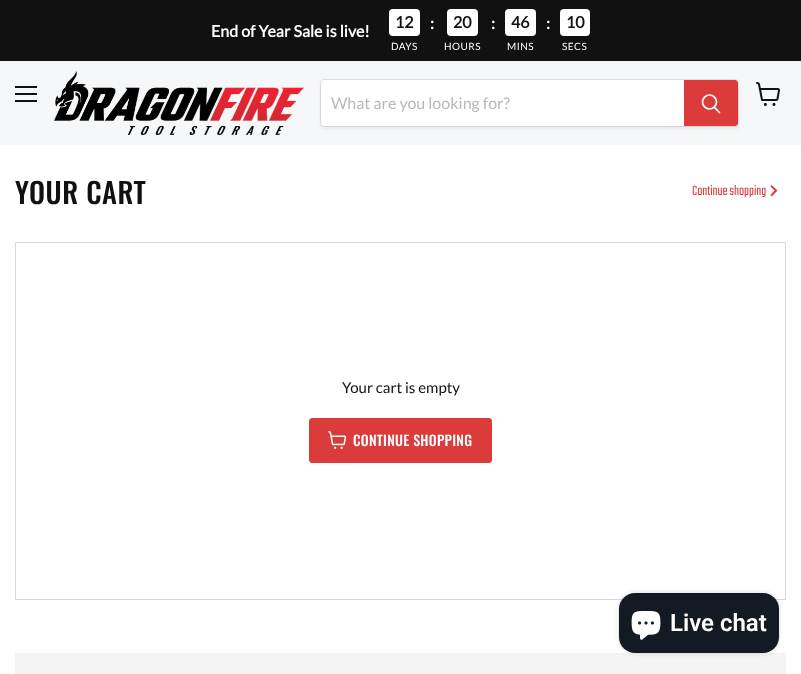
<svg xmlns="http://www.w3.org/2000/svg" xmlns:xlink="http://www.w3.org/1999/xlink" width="801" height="674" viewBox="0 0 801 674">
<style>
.cls-1{font:bold 16px Lato;fill:#ffffff}
.cls-2{font:bold 16px Lato;fill:#111111}
.cls-3{font:10px Lato;letter-spacing:0.5px;fill:#ffffff}
.cls-4{font:16px Lato;fill:#b8b8b8}
.cls-5{font:500 28.5px Oswald;letter-spacing:0.5px;fill:#111111}
.cls-6{font:300 15px Teko;fill:#db3b3b}
.cls-7{font:15px Lato;fill:#111111}
.cls-8{font:500 14px Oswald;letter-spacing:0.25px;fill:#ffffff}
.cls-9{font:600 24px Roboto;fill:#ffffff}
</style>
<rect width="100%" height="100%" fill="#ffffff"/>
<rect fill="#111111" x="0" y="0" width="801" height="61"/>
<rect fill="#ffffff" x="389" y="9" width="31" height="27" rx="4"/>
<rect fill="#ffffff" x="447" y="9" width="31" height="27" rx="4"/>
<rect fill="#ffffff" x="505" y="9" width="31" height="27" rx="4"/>
<rect fill="#ffffff" x="560" y="9" width="30" height="27" rx="4"/>
<rect fill="#f5f7f8" x="0" y="61" width="801" height="84"/>
<rect fill="#111111" x="15" y="86" width="22" height="2"/>
<rect fill="#111111" x="15" y="93" width="22" height="2"/>
<rect fill="#111111" x="15" y="100" width="22" height="2"/>
<image xlink:href="image0.png" x="756" y="82" width="24" height="24"/>
<image xlink:href="image1.png" x="54" y="71" width="250" height="65"/>
<rect fill="#808080" fill-opacity="0.11" filter="blur(1.5px)" x="320" y="81" width="419" height="48" rx="4"/>
<rect fill="none" stroke="#808080" stroke-opacity="0.2" x="320.5" y="79.5" width="418" height="47" rx="3.5"/>
<path fill="#ffffff" d="M324 80H684V126H324C322.5 126 321 124.5 321 123V83C321 81.5 322.5 80 324 80Z"/>
<path fill="#db3b3b" stroke="#db3b3b" d="M684.5 80.5H735C736.5 80.5 737.5 81.5 737.5 83V123C737.5 124.5 736.5 125.5 735 125.5H684.5Z"/>
<path fill="none" stroke="#ffffff" stroke-width="1.7" stroke-linecap="round" d="M719.5 112.5L714.5 107.5"/>
<circle fill="none" stroke="#ffffff" stroke-width="1.7" cx="709.5" cy="102" r="7"/>
<path fill="#db3b3b" fill-rule="evenodd" d="M774.5 190.5L770.5 186.5L771.5 185L777.5 190.5L771.5 196.5L770.5 195Z"/>
<rect fill="none" stroke="#d9d9d9" x="15.5" y="242.5" width="770" height="357"/>
<rect fill="#db3b3b" stroke="#db3b3b" x="309.5" y="418.5" width="182" height="44" rx="2.5"/>
<image xlink:href="image2.png" x="328" y="431" width="19" height="18"/>
<rect fill="#f3f3f3" x="15" y="653" width="771" height="21"/>
<rect fill="#000000" fill-opacity="0.15" filter="blur(2.5px)" x="619" y="593" width="160" height="60" rx="16"/>
<rect fill="#141a23" x="619" y="593" width="160" height="60" rx="16"/>
<image xlink:href="image3.png" x="631" y="611" width="30" height="29"/>
<text class="cls-1" x="211" y="37">End of Year Sale is live!</text>
<text class="cls-2" x="395" y="28">12</text>
<text class="cls-3" x="391" y="50">DAYS</text>
<text class="cls-1" x="430" y="29">:</text>
<text class="cls-2" x="453" y="28">20</text>
<text class="cls-3" x="444" y="50">HOURS</text>
<text class="cls-1" x="491" y="29">:</text>
<text class="cls-2" x="511" y="28">46</text>
<text class="cls-3" x="507" y="50">MINS</text>
<text class="cls-1" x="546" y="29">:</text>
<text class="cls-2" x="566" y="28">10</text>
<text class="cls-3" x="562" y="50">SECS</text>
<text class="cls-4" x="331" y="109">What are you looking for?</text>
<text class="cls-5" x="15" y="204">YOUR CART</text>
<text class="cls-6" x="692" y="195">Continue shopping</text>
<text class="cls-7" x="342" y="393">Your cart is empty</text>
<text class="cls-8" x="353" y="446">CONTINUE SHOPPING</text>
<text class="cls-9" x="670" y="631">Live chat</text>
</svg>
